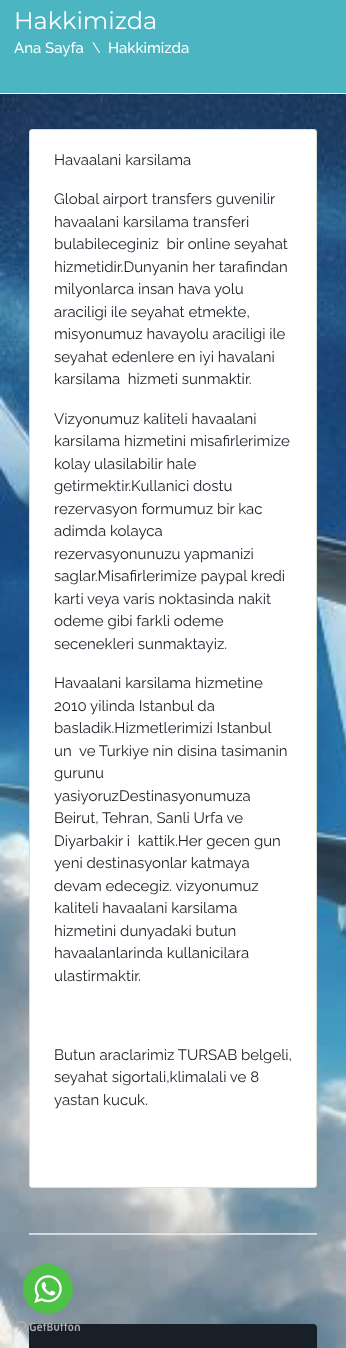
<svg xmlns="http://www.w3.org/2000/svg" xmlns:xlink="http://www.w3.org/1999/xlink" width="346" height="1348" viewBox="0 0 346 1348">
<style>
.cls-1{font:24px Montserrat;fill:#ffffff}
.cls-2{font:500 15px Raleway;fill:#ffffff}
.cls-3{font:15px Raleway;fill:#ffffff}
.cls-4{font:15px Raleway;fill:#191f26}
</style>
<rect width="100%" height="100%" fill="#ffffff"/>
<image xlink:href="image0.png" x="0" y="94" width="346" height="1254"/>
<rect fill="#4bb5c1" x="0" y="0" width="346" height="93"/>
<rect fill="#ffffff" stroke="#dfdfd0" x="29.5" y="129.5" width="287" height="1058" rx="2.5"/>
<rect fill="#ffffff" fill-opacity="0.6" x="29" y="1234" width="288" height="1"/>
<rect fill="#dfdfd0" x="29" y="1233" width="288" height="1"/>
<rect fill="none" stroke="#dfdfd0" x="29.5" y="1324.5" width="287" height="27" rx="2.5"/>
<path fill="#191f26" d="M32 1324H314C315.5 1324 317 1325.5 317 1327V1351H29V1327C29 1325.5 30.5 1324 32 1324Z"/>
<image xlink:href="image2.png" x="16" y="1321" width="64" height="11"/>
<rect fill="#888888" fill-opacity="0.4" filter="blur(3.5px)" x="23" y="1265" width="50" height="50" rx="25"/>
<circle fill="#4dc247" cx="48" cy="1289" r="25"/>
<image xlink:href="image1.png" x="34" y="1275" width="28" height="28"/>
<text class="cls-1" x="14" y="29">Hakkimizda</text>
<text class="cls-2" x="14" y="53">Ana Sayfa</text>
<text class="cls-3" x="92" y="53">\</text>
<text class="cls-2" x="108" y="53">Hakkimizda</text>
<text class="cls-4" x="54" y="165">Havaalani karsilama</text>
<text class="cls-4" xml:space="preserve"><tspan x="54" y="204">Global airport transfers guvenilir</tspan><tspan x="54" y="227">havaalani karsilama transferi</tspan><tspan x="54" y="249">bulabileceginiz  bir online seyahat</tspan><tspan x="54" y="272">hizmetidir.Dunyanin her tarafindan</tspan><tspan x="54" y="294">milyonlarca insan hava yolu</tspan><tspan x="54" y="317">araciligi ile seyahat etmekte,</tspan><tspan x="54" y="339">misyonumuz havayolu araciligi ile</tspan><tspan x="54" y="362">seyahat edenlere en iyi havalani</tspan><tspan x="54" y="384">karsilama  hizmeti sunmaktir.</tspan></text>
<text class="cls-4"><tspan x="54" y="424">Vizyonumuz kaliteli havaalani</tspan><tspan x="54" y="446">karsilama hizmetini misafirlerimize</tspan><tspan x="54" y="469">kolay ulasilabilir hale</tspan><tspan x="54" y="491">getirmektir.Kullanici dostu</tspan><tspan x="54" y="514">rezervasyon formumuz bir kac</tspan><tspan x="54" y="536">adimda kolayca</tspan><tspan x="54" y="559">rezervasyonunuzu yapmanizi</tspan><tspan x="54" y="581">saglar.Misafirlerimize paypal kredi</tspan><tspan x="54" y="604">karti veya varis noktasinda nakit</tspan><tspan x="54" y="626">odeme gibi farkli odeme</tspan><tspan x="54" y="649">secenekleri sunmaktayiz.</tspan></text>
<text class="cls-4" xml:space="preserve"><tspan x="54" y="688">Havaalani karsilama hizmetine</tspan><tspan x="54" y="711">2010 yilinda Istanbul da</tspan><tspan x="54" y="733">basladik.Hizmetlerimizi Istanbul</tspan><tspan x="54" y="756">un  ve Turkiye nin disina tasimanin</tspan><tspan x="54" y="778">gurunu</tspan><tspan x="54" y="801">yasiyoruzDestinasyonumuza</tspan><tspan x="54" y="823">Beirut, Tehran, Sanli Urfa ve</tspan><tspan x="54" y="846">Diyarbakir i  kattik.Her gecen gun</tspan><tspan x="54" y="868">yeni destinasyonlar katmaya</tspan><tspan x="54" y="891">devam edecegiz. vizyonumuz</tspan><tspan x="54" y="913">kaliteli havaalani karsilama</tspan><tspan x="54" y="936">hizmetini dunyadaki butun</tspan><tspan x="54" y="958">havaalanlarinda kullanicilara</tspan><tspan x="54" y="981">ulastirmaktir.</tspan></text>
<text class="cls-4"><tspan x="54" y="1060">Butun araclarimiz TURSAB belgeli,</tspan><tspan x="54" y="1082">seyahat sigortali,klimalali ve 8</tspan><tspan x="54" y="1105">yastan kucuk.</tspan></text>
</svg>
